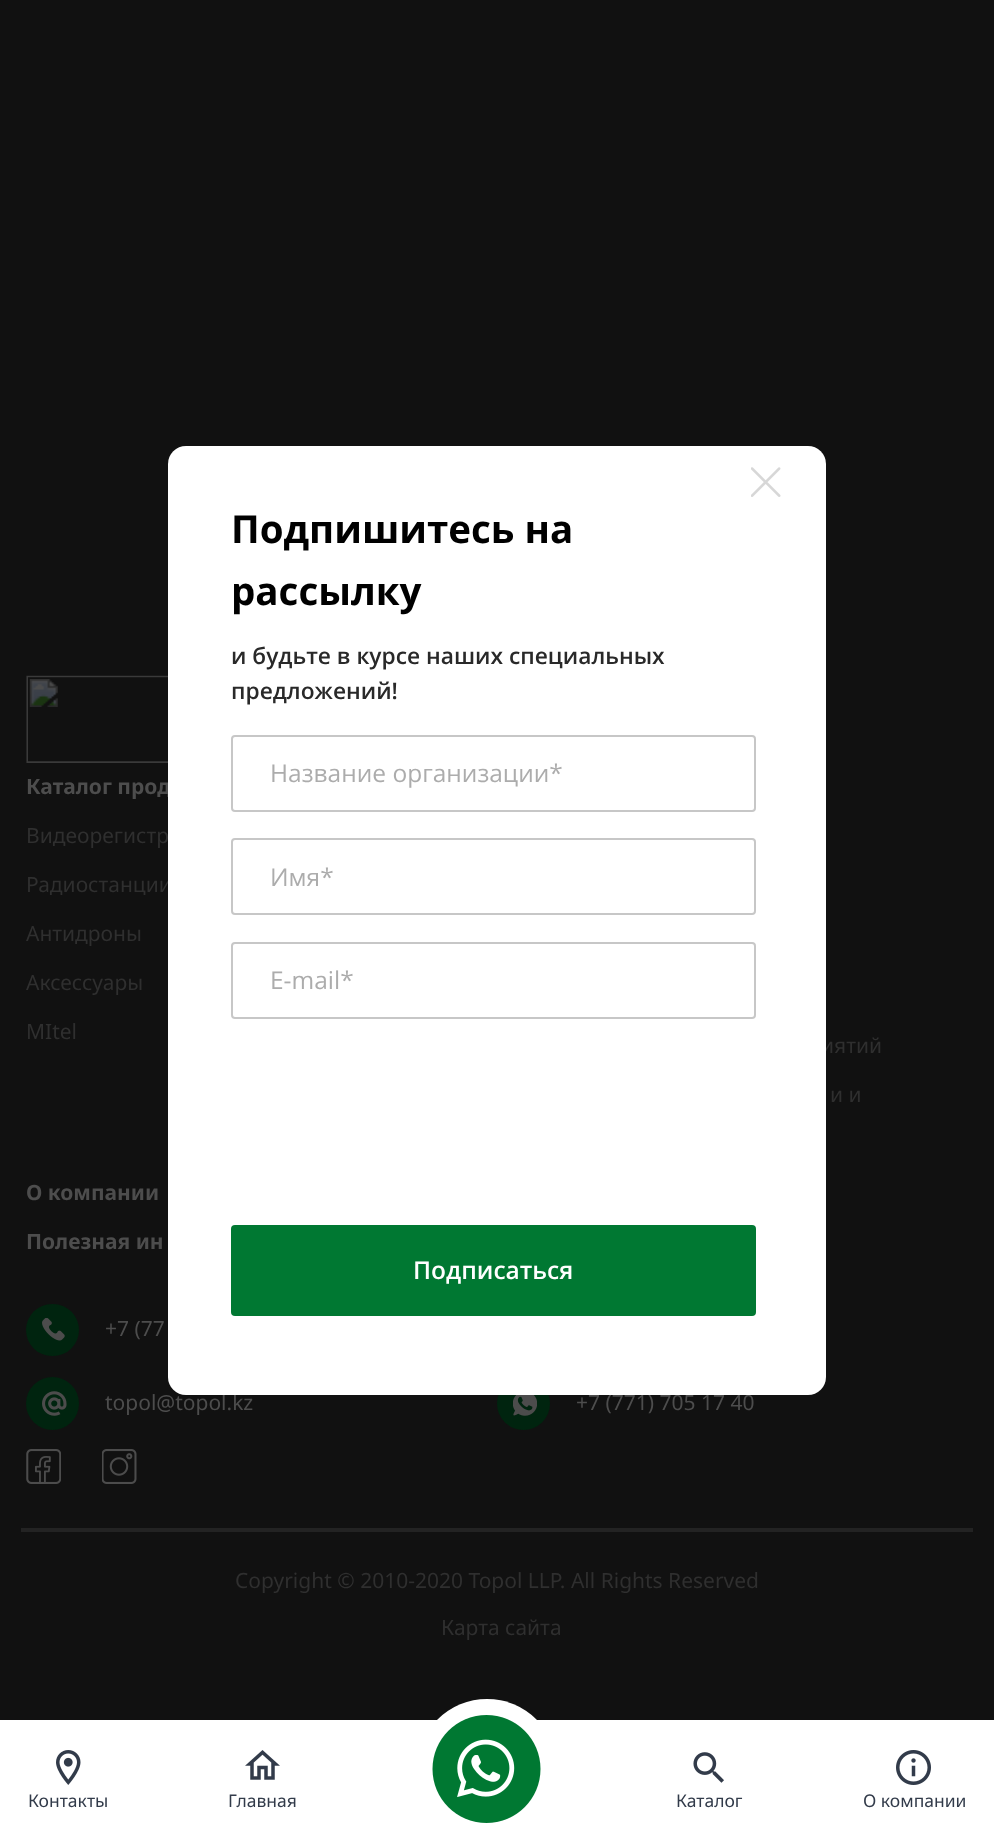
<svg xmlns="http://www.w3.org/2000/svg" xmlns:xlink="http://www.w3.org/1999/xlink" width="994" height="1838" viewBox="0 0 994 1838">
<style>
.cls-1{font:bold 21px Noto Sans;fill:#4d4d4d}
.cls-2{font:21px Noto Sans;fill:#2f2f2f}
.cls-3{font:21px Noto Sans;fill:#4d4d4d}
.cls-4{font:600 24.5px Open Sans;fill:#ffffff}
.cls-5{font:24.5px Open Sans;fill:#acacac}
.cls-6{font:600 22.75px Open Sans;fill:#292929}
.cls-7{font:bold 38.5px Open Sans;fill:#000000}
.cls-8{font:17.5px Noto Sans;fill:#323b4a}
</style>
<rect width="100%" height="100%" fill="#111111"/>
<image xlink:href="image1.png" x="26" y="675" width="142" height="88"/>
<rect fill="#00240f" x="26" y="1304" width="53" height="52" rx="26"/>
<image xlink:href="image2.png" x="42" y="1318" width="23" height="23"/>
<circle fill="#00240f" cx="52.5" cy="1403.5" r="26.5"/>
<image xlink:href="image3.png" x="42" y="1391" width="25" height="25"/>
<circle fill="#00240f" cx="523.5" cy="1403.5" r="26.5"/>
<image xlink:href="image4.png" x="513" y="1395" width="24" height="21"/>
<image xlink:href="image5.png" x="26" y="1449" width="35" height="35"/>
<image xlink:href="image6.png" x="102" y="1449" width="35" height="35"/>
<rect fill="#232323" x="21" y="1528" width="952" height="4"/>
<rect fill="#ffffff" x="0" y="1720" width="994" height="118"/>
<image xlink:href="image7.png" x="56" y="1750" width="25" height="35"/>
<image xlink:href="image8.png" x="245" y="1750" width="35" height="30"/>
<circle fill="#ffffff" cx="487" cy="1769" r="70"/>
<image xlink:href="image9.png" x="432" y="1715" width="109" height="108"/>
<image xlink:href="image10.png" x="693" y="1752" width="31" height="31"/>
<image xlink:href="image11.png" x="896" y="1750" width="35" height="35"/>
<text class="cls-1" x="26" y="794">Каталог прод</text>
<text class="cls-2" x="26" y="843">Видеорегистр</text>
<text class="cls-2" x="26" y="892">Радиостанции</text>
<text class="cls-2" x="26" y="941">Антидроны</text>
<text class="cls-2" x="26" y="990">Аксессуары</text>
<text class="cls-2" x="26" y="1039">MItel</text>
<text class="cls-2" x="821" y="1053">иятий</text>
<text class="cls-2" x="830" y="1102">и и</text>
<text class="cls-1" x="26" y="1200">О компании</text>
<text class="cls-1" x="26" y="1249">Полезная ин</text>
<text class="cls-3" x="105" y="1336">+7 (77</text>
<text class="cls-3" x="105" y="1410">topol@topol.kz</text>
<text class="cls-3" x="576" y="1410">+7 (771) 705 17 40</text>
<rect fill="#ffffff" x="168" y="446" width="658" height="949" rx="18"/>
<image xlink:href="image0.png" x="751" y="467" width="30" height="30"/>
<rect fill="#007832" x="231" y="1225" width="525" height="91" rx="4"/>
<text class="cls-4" x="413" y="1279">Подписаться</text>
<rect fill="none" stroke="#c7c7c7" stroke-width="2" x="232" y="943" width="523" height="75" rx="3"/>
<text class="cls-5" x="270" y="989">E-mail*</text>
<rect fill="none" stroke="#c7c7c7" stroke-width="2" x="232" y="839" width="523" height="75" rx="3"/>
<text class="cls-5" x="270" y="886">Имя*</text>
<rect fill="none" stroke="#c7c7c7" stroke-width="2" x="232" y="736" width="523" height="75" rx="3"/>
<text class="cls-5" x="270" y="782">Название организации*</text>
<text class="cls-6" x="231" y="699">предложений!</text>
<text class="cls-6" x="231" y="664">и будьте в курсе наших специальных</text>
<text class="cls-7" x="231" y="605">рассылку</text>
<text class="cls-7" x="231" y="543">Подпишитесь на</text>
<text class="cls-2" x="235" y="1588">Copyright © 2010-2020 Topol LLP. All Rights Reserved</text>
<text class="cls-2" x="441" y="1635">Карта сайта</text>
<text class="cls-8" x="28" y="1807">Контакты</text>
<text class="cls-8" x="228" y="1807">Главная</text>
<text class="cls-8" x="676" y="1807">Каталог</text>
<text class="cls-8" x="863" y="1807">О компании</text>
</svg>
